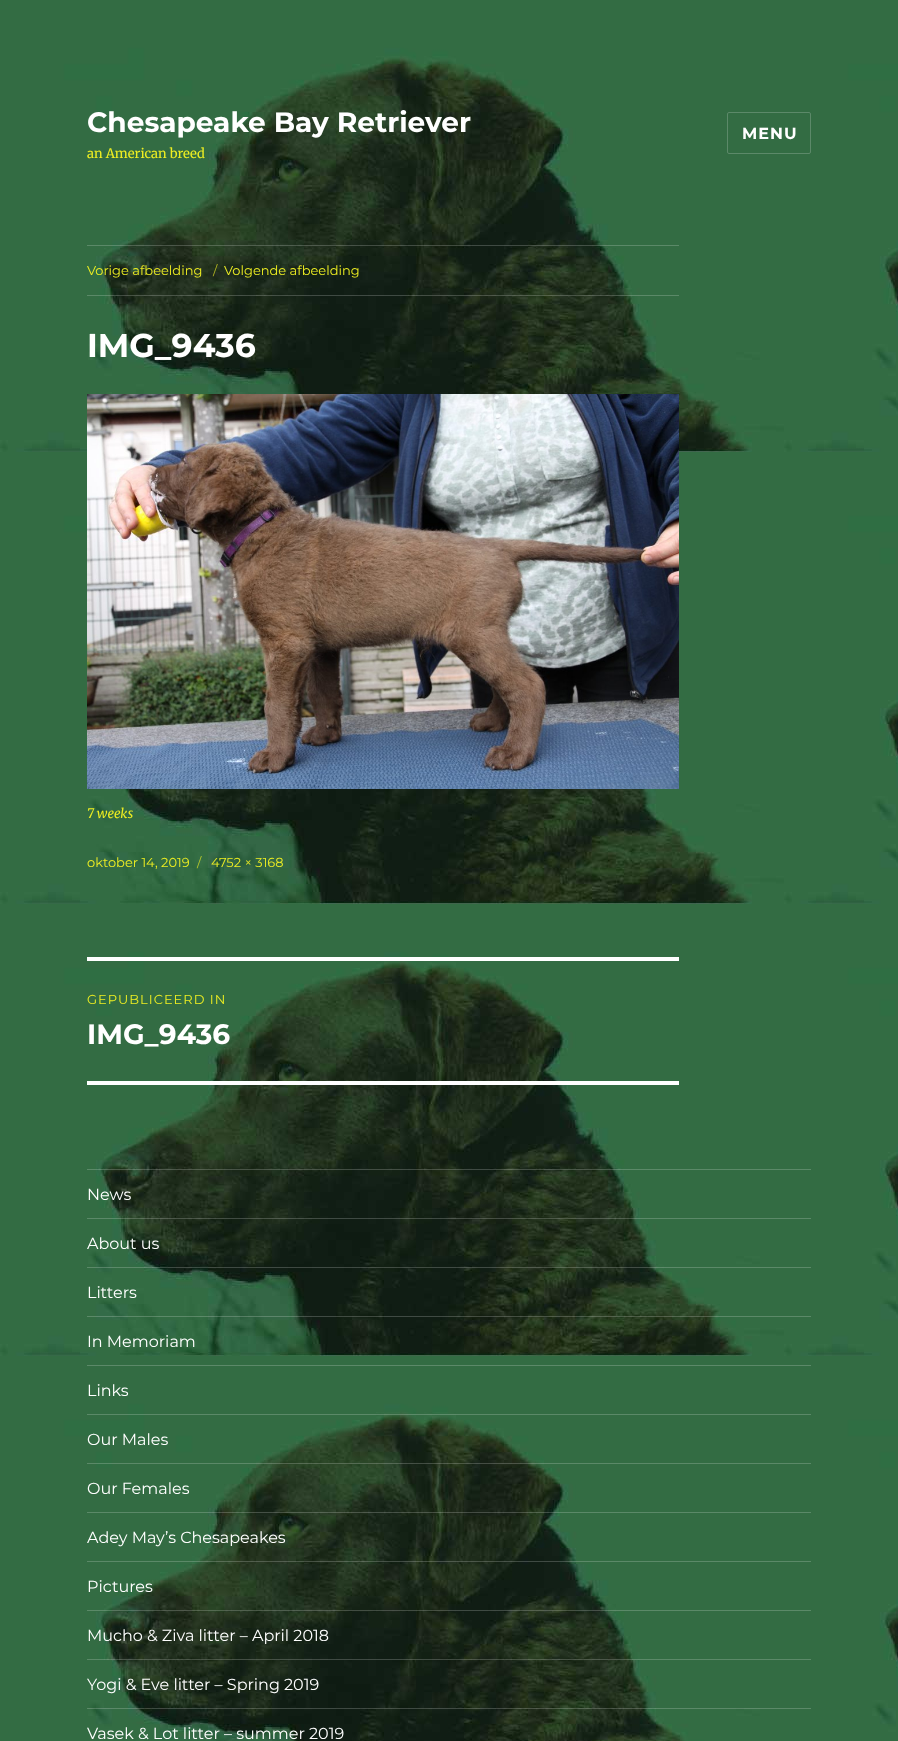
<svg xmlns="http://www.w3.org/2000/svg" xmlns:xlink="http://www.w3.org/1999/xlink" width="898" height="1741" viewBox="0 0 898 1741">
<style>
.cls-1{font:bold 28px Montserrat;fill:#ffffff}
.cls-2{font:13px Merriweather;fill:#eeee22}
.cls-3{font:bold 16px Montserrat;letter-spacing:1px;fill:#ffffff}
.cls-4{font:13px Montserrat;fill:#eeee22}
.cls-5{font:13px Montserrat;fill:#b1b521}
.cls-6{font:bold 33px Montserrat;fill:#ffffff}
.cls-7{font:italic 13px Merriweather;fill:#eeee22}
.cls-8{font:13px Montserrat;fill:#b6c72c}
.cls-9{font:13px Montserrat;letter-spacing:1px;fill:#eeee22}
.cls-10{font:16px Montserrat;fill:#ffffff}
</style>
<rect width="100%" height="100%" fill="#ffffff"/>
<image xlink:href="image0.png" x="0" y="0" width="898" height="1741"/>
<rect fill="none" stroke="#5c8969" x="727.5" y="112.5" width="83" height="41" rx="1.5"/>
<rect fill="#ffffff" fill-opacity="0.2" x="87" y="245" width="592" height="1"/>
<rect fill="#ffffff" fill-opacity="0.2" x="87" y="295" width="592" height="1"/>
<image xlink:href="image1.png" x="87" y="394" width="592" height="395"/>
<rect fill="#ffffff" x="87" y="957" width="592" height="4"/>
<rect fill="#ffffff" x="87" y="1081" width="592" height="4"/>
<rect fill="#ffffff" fill-opacity="0.2" x="87" y="1169" width="724" height="1"/>
<rect fill="#ffffff" fill-opacity="0.2" x="87" y="1218" width="724" height="1"/>
<rect fill="#ffffff" fill-opacity="0.2" x="87" y="1267" width="724" height="1"/>
<rect fill="#ffffff" fill-opacity="0.2" x="87" y="1316" width="724" height="1"/>
<rect fill="#5c8969" x="87" y="1365" width="724" height="1"/>
<rect fill="#ffffff" fill-opacity="0.2" x="87" y="1414" width="724" height="1"/>
<rect fill="#ffffff" fill-opacity="0.2" x="87" y="1463" width="724" height="1"/>
<rect fill="#ffffff" fill-opacity="0.2" x="87" y="1512" width="724" height="1"/>
<rect fill="#ffffff" fill-opacity="0.2" x="87" y="1561" width="724" height="1"/>
<rect fill="#ffffff" fill-opacity="0.2" x="87" y="1610" width="724" height="1"/>
<rect fill="#ffffff" fill-opacity="0.2" x="87" y="1659" width="724" height="1"/>
<rect fill="#ffffff" fill-opacity="0.2" x="87" y="1708" width="724" height="1"/>
<text class="cls-1" x="87" y="132">Chesapeake Bay Retriever</text>
<text class="cls-2" x="87" y="158">an American breed</text>
<text class="cls-3" x="742" y="139">MENU</text>
<text class="cls-4" x="87" y="275">Vorige afbeelding</text>
<text class="cls-5" x="213" y="275">/</text>
<text class="cls-4" x="224" y="275">Volgende afbeelding</text>
<text class="cls-6" x="87" y="357">IMG_9436</text>
<text class="cls-7" x="87" y="818">7 weeks</text>
<text class="cls-4" x="87" y="867">oktober 14, 2019</text>
<text class="cls-8" x="197" y="867">/</text>
<text class="cls-4" x="211" y="867">4752 × 3168</text>
<text class="cls-9" x="87" y="1004">GEPUBLICEERD IN</text>
<text class="cls-1" x="87" y="1044">IMG_9436</text>
<text class="cls-10" x="87" y="1200">News</text>
<text class="cls-10" x="87" y="1249">About us</text>
<text class="cls-10" x="87" y="1298">Litters</text>
<text class="cls-10" x="87" y="1347">In Memoriam</text>
<text class="cls-10" x="87" y="1396">Links</text>
<text class="cls-10" x="87" y="1445">Our Males</text>
<text class="cls-10" x="87" y="1494">Our Females</text>
<text class="cls-10" x="87" y="1543">Adey May’s Chesapeakes</text>
<text class="cls-10" x="87" y="1592">Pictures</text>
<text class="cls-10" x="87" y="1641">Mucho &amp; Ziva litter – April 2018</text>
<text class="cls-10" x="87" y="1690">Yogi &amp; Eve litter – Spring 2019</text>
<text class="cls-10" x="87" y="1739">Vasek &amp; Lot litter – summer 2019</text>
</svg>
